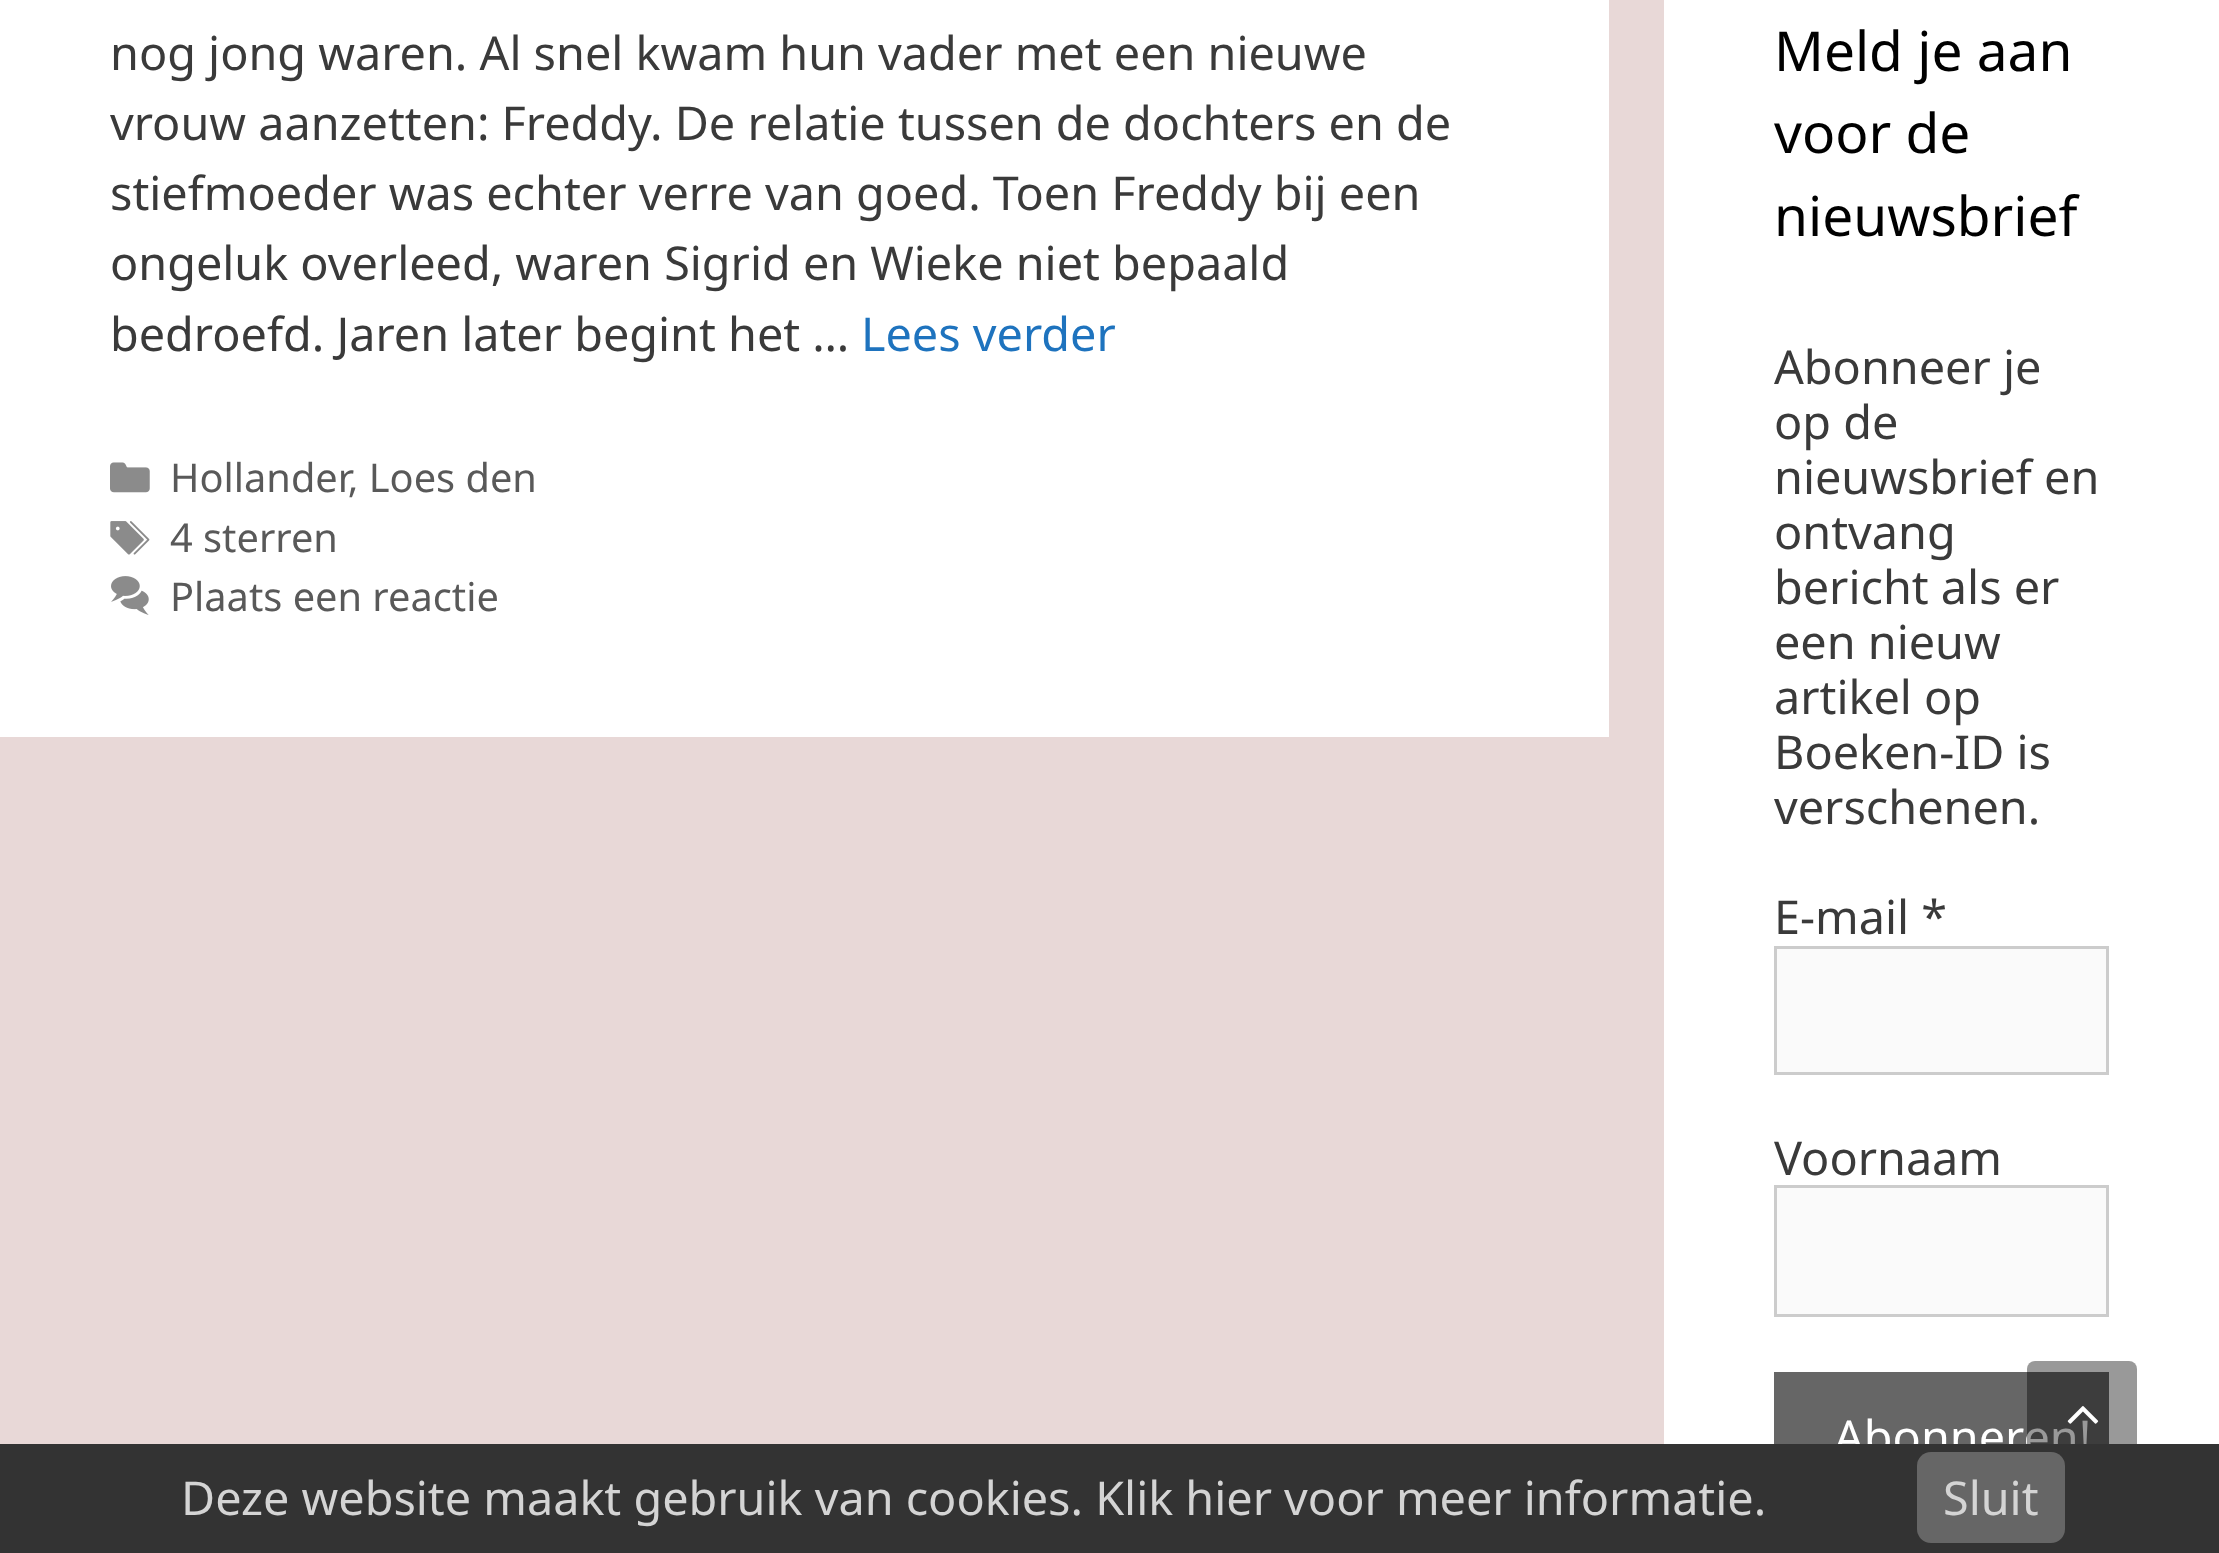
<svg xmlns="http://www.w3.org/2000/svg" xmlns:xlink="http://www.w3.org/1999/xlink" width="2219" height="1553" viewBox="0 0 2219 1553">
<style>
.cls-1{font:46.75px Noto Sans;fill:#3a3a3a}
.cls-2{font:46.75px Noto Sans;fill:#1e73be}
.cls-3{font:39.75px Noto Sans;fill:#595959}
.cls-4{font:55px Noto Sans;fill:#000000}
.cls-5{font:46.75px Noto Sans;fill:#ffffff}
.cls-6{font:46.75px Noto Sans;fill:#d4d4d4}
</style>
<rect width="100%" height="100%" fill="#e8d8d7"/>
<rect fill="#ffffff" x="0" y="0" width="1609" height="737"/>
<image xlink:href="image0.png" x="110" y="462" width="40" height="31"/>
<image xlink:href="image1.png" x="110" y="521" width="40" height="34"/>
<image xlink:href="image2.png" x="111" y="576" width="38" height="39"/>
<rect fill="#ffffff" x="1664" y="0" width="555" height="1444"/>
<rect fill="#fafafa" stroke="#cccccc" stroke-width="3" x="1775.5" y="947.5" width="332" height="126"/>
<rect fill="#fafafa" stroke="#cccccc" stroke-width="3" x="1775.5" y="1186.5" width="332" height="129"/>
<rect fill="#666666" x="1774" y="1372" width="335" height="72"/>
<text class="cls-1"><tspan x="110" y="70">nog jong waren. Al snel kwam hun vader met een nieuwe</tspan><tspan x="110" y="140">vrouw aanzetten: Freddy. De relatie tussen de dochters en de</tspan><tspan x="110" y="210">stiefmoeder was echter verre van goed. Toen Freddy bij een</tspan><tspan x="110" y="280">ongeluk overleed, waren Sigrid en Wieke niet bepaald</tspan><tspan x="110" y="351">bedroefd. Jaren later begint het …</tspan></text>
<text class="cls-2" x="861" y="351">Lees verder</text>
<text class="cls-3"><tspan x="170" y="492">Hollander, Loes den</tspan><tspan x="170" y="552">4 sterren</tspan><tspan x="170" y="611">Plaats een reactie</tspan></text>
<text class="cls-4"><tspan x="1774" y="71">Meld je aan</tspan><tspan x="1774" y="153">voor de</tspan><tspan x="1774" y="236">nieuwsbrief</tspan></text>
<text class="cls-1"><tspan x="1774" y="384">Abonneer je</tspan><tspan x="1774" y="439">op de</tspan><tspan x="1774" y="494">nieuwsbrief en</tspan><tspan x="1774" y="549">ontvang</tspan><tspan x="1774" y="604">bericht als er</tspan><tspan x="1774" y="659">een nieuw</tspan><tspan x="1774" y="714">artikel op</tspan><tspan x="1774" y="769">Boeken-ID is</tspan><tspan x="1774" y="824">verschenen.</tspan></text>
<text class="cls-1" x="1774" y="934">E-mail *</text>
<text class="cls-1" x="1774" y="1175">Voornaam</text>
<text class="cls-5" x="1834" y="1454">Abonneren!</text>
<rect fill="#000000" fill-opacity="0.4" x="2027" y="1361" width="110" height="110" rx="8"/>
<image xlink:href="image3.png" x="2067" y="1406" width="32" height="18"/>
<rect fill="#333333" x="0" y="1444" width="2219" height="109"/>
<text class="cls-6" x="181" y="1515">Deze website maakt gebruik van cookies. Klik hier voor meer informatie.</text>
<rect fill="#666666" x="1917" y="1452" width="148" height="91" rx="14"/>
<text class="cls-6" x="1943" y="1515">Sluit</text>
</svg>
